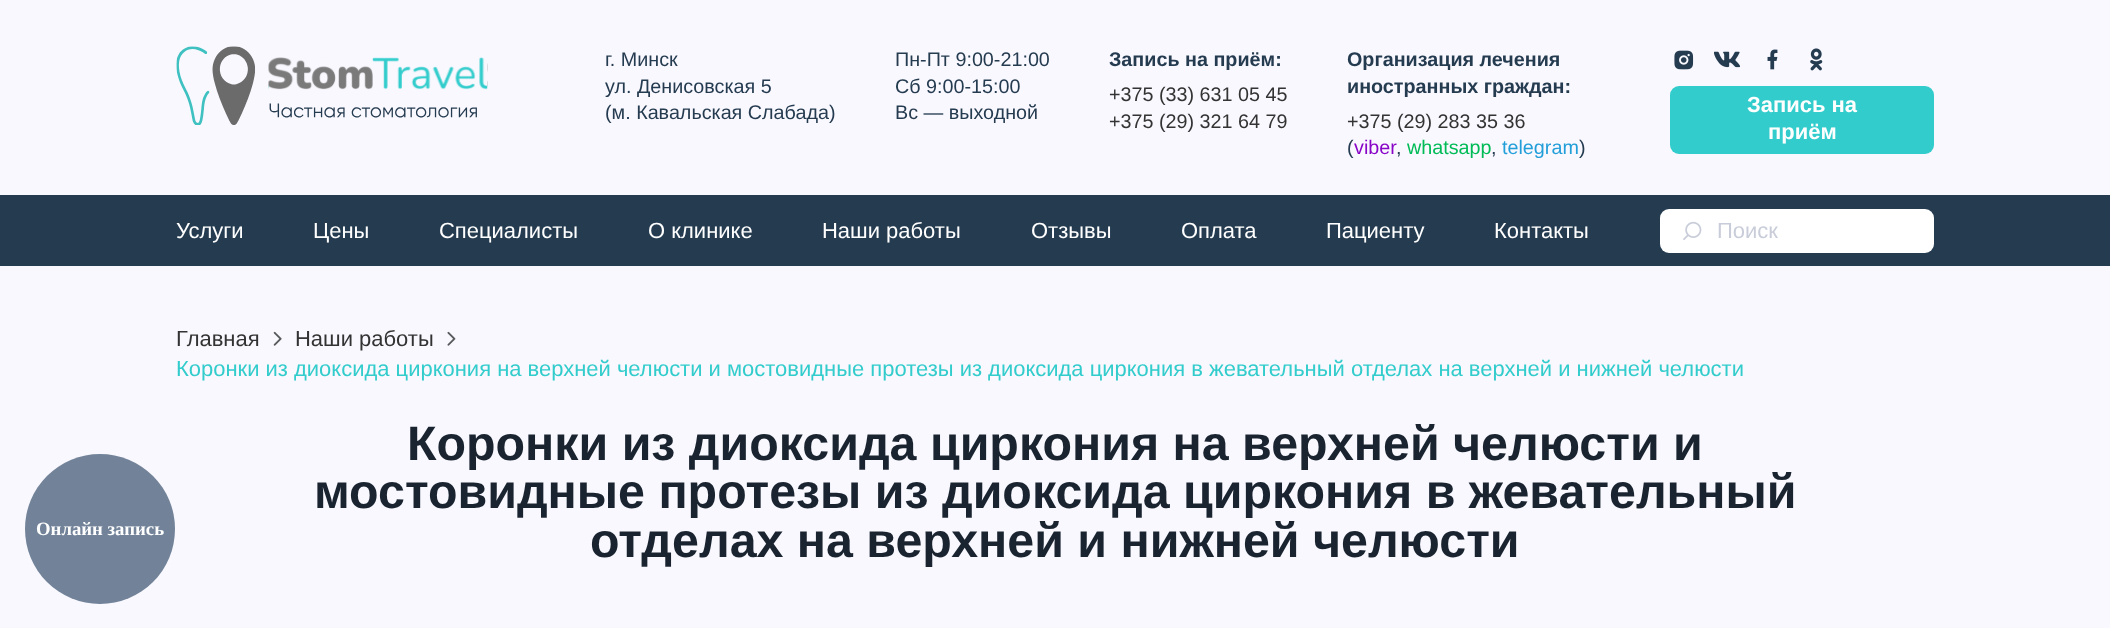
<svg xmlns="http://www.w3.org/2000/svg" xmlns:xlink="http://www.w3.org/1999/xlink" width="2110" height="628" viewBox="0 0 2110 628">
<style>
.cls-1{font:19.75px Liberation Sans;fill:#253b50}
.cls-2{font:bold 19.75px Liberation Sans;fill:#253b50}
.cls-3{font:19.75px Liberation Sans;fill:#333333}
.cls-4{font:19.75px Liberation Sans;fill:#8905c7}
.cls-5{font:19.75px Liberation Sans;fill:#00bb56}
.cls-6{font:19.75px Liberation Sans;fill:#229ed9}
.cls-7{font:bold 21.98px Liberation Sans;fill:#ffffff}
.cls-8{font:21.98px Liberation Sans;fill:#ffffff}
.cls-9{font:21.98px Liberation Sans;fill:#c9cdd9}
.cls-10{font:bold 18.75px Liberation Serif;fill:#ffffff}
.cls-11{font:21.98px Liberation Sans;fill:#333333}
.cls-12{font:21.98px Liberation Sans;fill:#33cccc}
.cls-13{font:bold 48.35px Liberation Sans;fill:#192430}
</style>
<rect width="100%" height="100%" fill="#f9f8fe"/>
<image xlink:href="image0.png" x="176" y="46" width="312" height="79"/>
<image xlink:href="image1.png" x="1674" y="50" width="20" height="20"/>
<image xlink:href="image2.png" x="1714" y="51" width="26" height="17"/>
<image xlink:href="image3.png" x="1767" y="49" width="11" height="21"/>
<image xlink:href="image4.png" x="1810" y="48" width="13" height="23"/>
<rect fill="#33cccc" x="1670" y="86" width="264" height="68" rx="9"/>
<rect fill="#253b50" x="0" y="195" width="2110" height="71"/>
<rect fill="#ffffff" x="1660" y="209" width="274" height="44" rx="9"/>
<image xlink:href="image5.png" x="1683" y="221" width="19" height="19"/>
<circle fill="#728399" cx="100" cy="529" r="75"/>
<image xlink:href="image6.png" x="273" y="331" width="9" height="15"/>
<image xlink:href="image7.png" x="447" y="331" width="9" height="15"/>
<text class="cls-1"><tspan x="605" y="66">г. Минск</tspan><tspan x="605" y="93">ул. Денисовская 5</tspan><tspan x="605" y="119">(м. Кавальская Слабада)</tspan></text>
<text class="cls-1"><tspan x="895" y="66">Пн-Пт 9:00-21:00</tspan><tspan x="895" y="93">Cб 9:00-15:00</tspan><tspan x="895" y="119">Вс — выходной</tspan></text>
<text class="cls-2" x="1109" y="66">Запись на приём:</text>
<text class="cls-3"><tspan x="1109" y="101">+375 (33) 631 05 45</tspan><tspan x="1109" y="128">+375 (29) 321 64 79</tspan></text>
<text class="cls-2"><tspan x="1347" y="66">Организация лечения</tspan><tspan x="1347" y="93">иностранных граждан:</tspan></text>
<text class="cls-3" x="1347" y="128">+375 (29) 283 35 36</text>
<text class="cls-1" x="1347" y="154">(</text>
<text class="cls-4" x="1354" y="154">viber</text>
<text class="cls-1" x="1396" y="154">,</text>
<text class="cls-5" x="1407" y="154">whatsapp</text>
<text class="cls-1" x="1491" y="154">,</text>
<text class="cls-6" x="1502" y="154">telegram</text>
<text class="cls-1" x="1579" y="154">)</text>
<text class="cls-7" x="1747" y="112">Запись на</text>
<text class="cls-7" x="1768" y="139">приём</text>
<text class="cls-8" x="176" y="238">Услуги</text>
<text class="cls-8" x="313" y="238">Цены</text>
<text class="cls-8" x="439" y="238">Специалисты</text>
<text class="cls-8" x="648" y="238">О клинике</text>
<text class="cls-8" x="822" y="238">Наши работы</text>
<text class="cls-8" x="1031" y="238">Отзывы</text>
<text class="cls-8" x="1181" y="238">Оплата</text>
<text class="cls-8" x="1326" y="238">Пациенту</text>
<text class="cls-8" x="1494" y="238">Контакты</text>
<text class="cls-9" x="1717" y="238">Поиск</text>
<text class="cls-10" x="36" y="535">Онлайн запись</text>
<text class="cls-11" x="176" y="346">Главная</text>
<text class="cls-11" x="295" y="346">Наши работы</text>
<text class="cls-12" x="176" y="376">Коронки из диоксида циркония на верхней челюсти и мостовидные протезы из диоксида циркония в жевательный отделах на верхней и нижней челюсти</text>
<text class="cls-13" x="407" y="460">Коронки из диоксида циркония на верхней челюсти и</text>
<text class="cls-13" x="314" y="508">мостовидные протезы из диоксида циркония в жевательный</text>
<text class="cls-13" x="590" y="557">отделах на верхней и нижней челюсти</text>
</svg>
